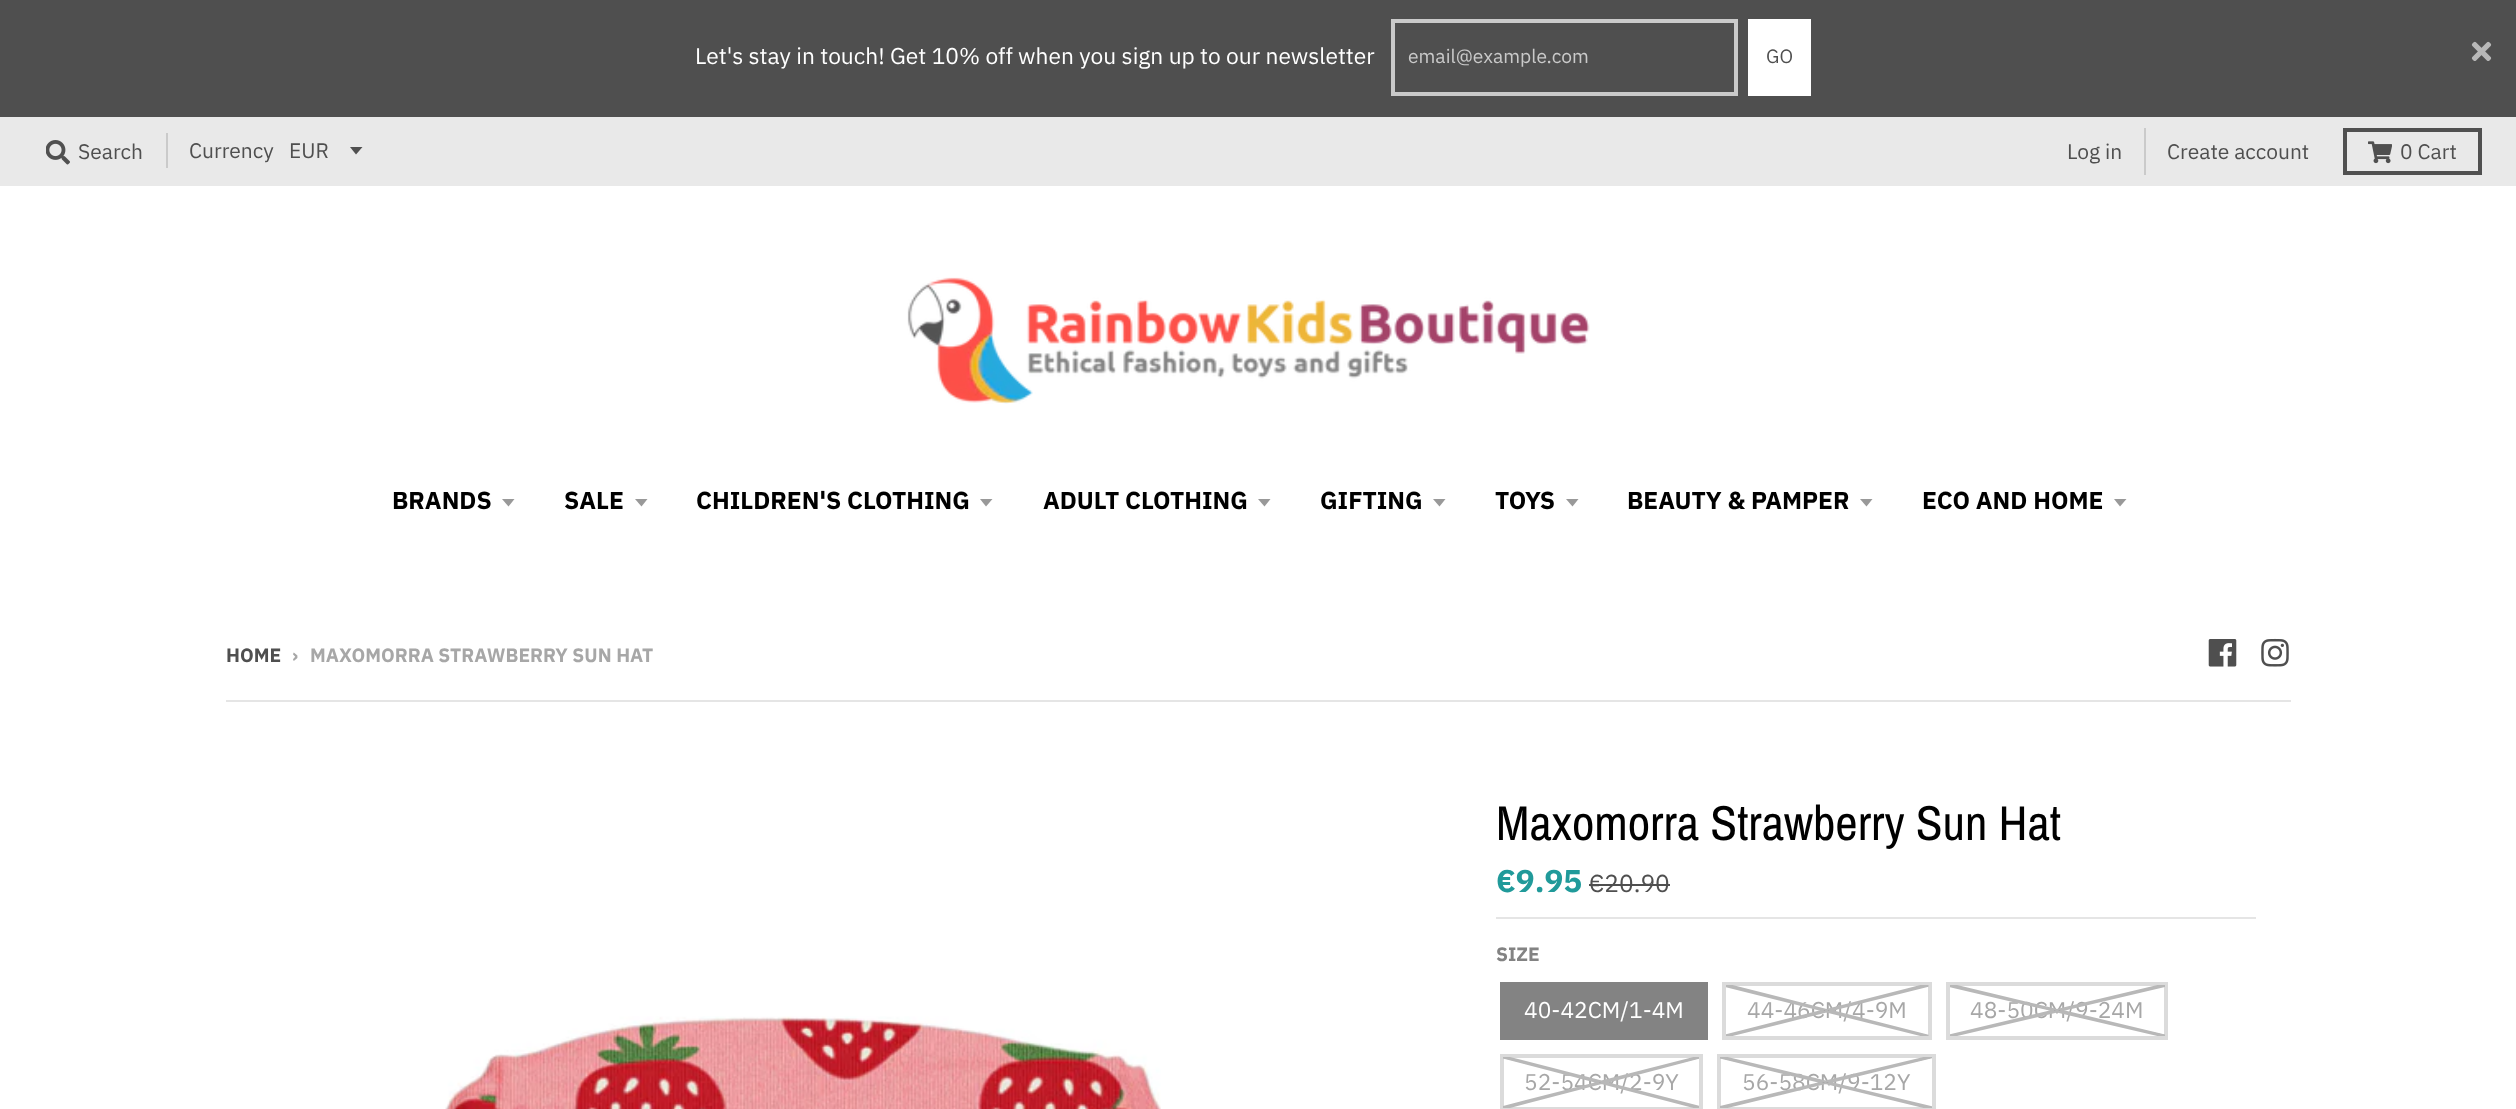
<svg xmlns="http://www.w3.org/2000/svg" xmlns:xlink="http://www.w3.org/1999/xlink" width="2516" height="1109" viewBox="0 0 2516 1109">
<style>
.cls-1{font:22.75px IBM Plex Sans;fill:#ffffff}
.cls-2{font:19.25px IBM Plex Sans;fill:#cacaca}
.cls-3{font:19.25px IBM Plex Sans;fill:#4f4f4f}
.cls-4{font:21px IBM Plex Sans;fill:#4f4f4f}
.cls-5{font:bold 24.5px IBM Plex Sans;fill:#000000}
.cls-6{font:bold 19.25px IBM Plex Sans;fill:#4f4f4f}
.cls-7{font:bold 19.25px IBM Plex Sans;fill:#a7a7a7}
.cls-8{font:49px Archivo Narrow;fill:#000000}
.cls-9{font:bold 31.5px IBM Plex Sans;fill:#209a9a}
.cls-10{font:24.5px IBM Plex Sans;fill:#4f4f4f}
.cls-11{font:bold 19.25px IBM Plex Sans;fill:#838383}
.cls-12{font:22.75px IBM Plex Sans;fill:#a7a7a7}
</style>
<defs>
<clipPath id="clip1"><rect x="1726" y="985" width="203" height="51"/></clipPath>
<clipPath id="clip2"><rect x="1950" y="985" width="215" height="51"/></clipPath>
<clipPath id="clip3"><rect x="1503" y="1057" width="196" height="51"/></clipPath>
<clipPath id="clip4"><rect x="1720" y="1057" width="212" height="51"/></clipPath>
</defs>
<rect width="100%" height="100%" fill="#ffffff"/>
<rect fill="#4f4f4f" x="0" y="0" width="2516" height="117"/>
<rect fill="none" stroke="#cacaca" stroke-width="4" x="1393" y="21" width="343" height="73"/>
<rect fill="#ffffff" x="1748" y="19" width="63" height="77"/>
<image xlink:href="image0.png" x="2471" y="41" width="21" height="20"/>
<rect fill="#e9e9e9" x="0" y="117" width="2516" height="69"/>
<image xlink:href="image1.png" x="46" y="140" width="24" height="25"/>
<rect fill="#cacaca" x="166" y="133" width="2" height="35"/>
<path fill="#505050" d="M350 147L356 154.5L362.5 147Z"/>
<rect fill="#cacaca" x="2144" y="128" width="2" height="47"/>
<rect fill="none" stroke="#505050" stroke-width="4" x="2345" y="130" width="135" height="43"/>
<image xlink:href="image2.png" x="2368" y="141" width="24" height="23"/>
<image xlink:href="image3.png" x="907" y="277" width="683" height="127"/>
<path fill="#999999" d="M502 499L508.5 506.5L514.5 499Z"/>
<path fill="#999999" d="M635 499L641.5 506.5L647.5 499Z"/>
<path fill="#999999" d="M980 499L986 506.5L992.5 499Z"/>
<path fill="#999999" d="M1258 499L1264.5 506.5L1270.5 499Z"/>
<path fill="#999999" d="M1433 499L1439.5 506.5L1445.5 499Z"/>
<path fill="#999999" d="M1566 499L1572.5 506.5L1578.5 499Z"/>
<path fill="#999999" d="M1860 499L1866.5 506.5L1872.5 499Z"/>
<path fill="#999999" d="M2114 499L2120 506.5L2126.5 499Z"/>
<image xlink:href="image4.png" x="2208" y="639" width="29" height="28"/>
<image xlink:href="image5.png" x="2261" y="638" width="28" height="29"/>
<rect fill="#e5e5e5" x="226" y="700" width="2065" height="2"/>
<image xlink:href="image6.png" x="445" y="1016" width="716" height="93"/>
<rect fill="#e5e5e5" x="1496" y="917" width="760" height="2"/>
<rect fill="#4f4f4f" x="1589" y="884" width="81" height="2"/>
<rect fill="#838383" x="1500" y="982" width="208" height="58"/>
<rect fill="none" stroke="#dbdbdb" stroke-width="4" x="1724" y="984" width="206" height="54"/>
<rect fill="none" stroke="#dbdbdb" stroke-width="4" x="1948" y="984" width="218" height="54"/>
<rect fill="none" stroke="#dbdbdb" stroke-width="4" x="1502" y="1056" width="199" height="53"/>
<rect fill="none" stroke="#dbdbdb" stroke-width="4" x="1719" y="1056" width="215" height="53"/>
<text class="cls-1" x="695" y="64">Let's stay in touch! Get 10% off when you sign up to our newsletter</text>
<text class="cls-2" x="1408" y="63">email@example.com</text>
<text class="cls-3" x="1766" y="63">GO</text>
<text class="cls-4" x="78" y="159">Search</text>
<text class="cls-4" x="189" y="158">Currency</text>
<text class="cls-4" x="289" y="158">EUR</text>
<text class="cls-4" x="2067" y="159">Log in</text>
<text class="cls-4" x="2167" y="159">Create account</text>
<text class="cls-4" x="2400" y="159">0 Cart</text>
<text class="cls-5" x="392" y="509">BRANDS</text>
<text class="cls-5" x="564" y="509">SALE</text>
<text class="cls-5" x="696" y="509">CHILDREN'S CLOTHING</text>
<text class="cls-5" x="1043" y="509">ADULT CLOTHING</text>
<text class="cls-5" x="1320" y="509">GIFTING</text>
<text class="cls-5" x="1495" y="509">TOYS</text>
<text class="cls-5" x="1627" y="509">BEAUTY &amp; PAMPER</text>
<text class="cls-5" x="1922" y="509">ECO AND HOME</text>
<text class="cls-6" x="226" y="662">HOME</text>
<text class="cls-7" x="292" y="662">›</text>
<text class="cls-7" x="310" y="662">MAXOMORRA STRAWBERRY SUN HAT</text>
<text class="cls-8" x="1496" y="840">Maxomorra Strawberry Sun Hat</text>
<text class="cls-9" x="1496" y="892">€9.95</text>
<text class="cls-10" x="1589" y="892">€20.90</text>
<text class="cls-11" x="1496" y="961">SIZE</text>
<text class="cls-1" x="1524" y="1018">40-42CM/1-4M</text>
<text class="cls-12" x="1747" y="1018">44-46CM/4-9M</text>
<path fill="#979797" d="M1924 985H1927V986L1829 1011L1927 1035V1036H1924L1826 1011L1728 1036H1726V1035L1824 1011L1726 986V985H1728L1826 1010Z"/>
<g clip-path="url(#clip1)">
<path fill="none" stroke="#b8b8b8" stroke-width="2" d="M1924.5 985H1927.5V986L1829.5 1010.5L1927.5 1035.5V1036H1924.5L1826.5 1011.5L1728.5 1036H1725.5V1035.5L1823.5 1010.5L1725.5 986V985H1728.5L1826.5 1010Z"/>
</g>
<text class="cls-12" x="1970" y="1018">48-50CM/9-24M</text>
<path fill="#979797" d="M2162 985H2165V986L2060 1011L2165 1035V1036H2162L2057 1011L1953 1036H1950V1035L2054 1011L1950 986V985H1953L2057 1010Z"/>
<g clip-path="url(#clip2)">
<path fill="none" stroke="#b8b8b8" stroke-width="2.1" d="M2162 985H2165V986L2060.5 1010.5L2165 1035.5V1036H2162L2057 1011.5L1952.5 1036H1949.5V1035.5L2054 1010.5L1949.5 986V985H1952.5L2057 1010Z"/>
</g>
<text class="cls-12" x="1524" y="1090">52-54CM/2-9Y</text>
<g clip-path="url(#clip3)">
<path fill="#979797" d="M1697 1057H1700V1058L1604 1082L1700 1107V1108H1697L1602 1083L1506 1108H1503V1107L1599 1082L1503 1058V1057H1506L1602 1082Z"/>
<path fill="none" stroke="#b8b8b8" stroke-width="2" d="M1697.5 1057H1700V1057.5L1604.5 1082.5L1700 1107V1108H1697.5L1601.5 1083L1506 1108H1503V1107L1599 1082.5L1503 1057.5V1057H1506L1601.5 1081.5Z"/>
</g>
<text class="cls-12" x="1742" y="1090">56-58CM/9-12Y</text>
<path fill="#979797" d="M1928 1057H1931V1058L1828 1082L1931 1107V1108H1928L1826 1083L1723 1108H1720V1107L1823 1082L1720 1058V1057H1723L1826 1082Z"/>
<g clip-path="url(#clip4)">
<path fill="none" stroke="#b8b8b8" stroke-width="2.1" d="M1928 1057H1931V1057.5L1828.5 1082.5L1931 1107V1108H1928L1825.5 1083L1723 1108H1720V1107L1822.5 1082.5L1720 1057.5V1057H1723L1825.5 1081.5Z"/>
</g>
</svg>
